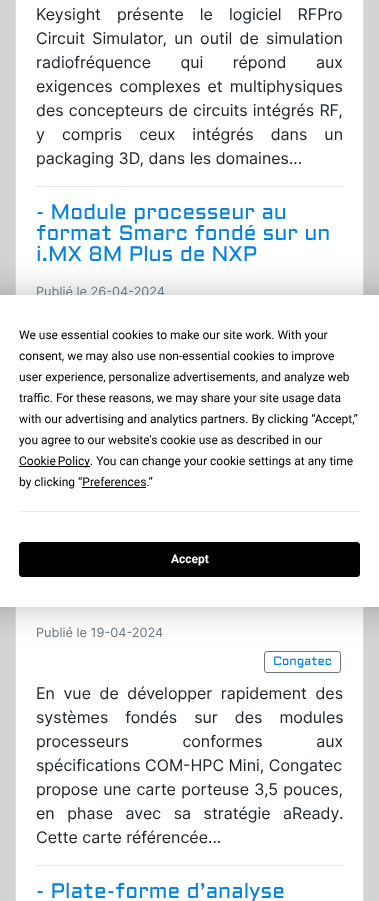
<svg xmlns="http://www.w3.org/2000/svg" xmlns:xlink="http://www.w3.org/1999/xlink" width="379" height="901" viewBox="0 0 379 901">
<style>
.cls-1{font:16px Inter;fill:#212529}
.cls-2{font:21px Aldrich;fill:#0481e1}
.cls-3{font:12.75px Inter;fill:#6c757d}
.cls-4{font:12px Aldrich;fill:#0481e1}
.cls-5{font:12px Roboto;fill:#000000}
.cls-6{font:bold 12px Roboto;fill:#ffffff}
</style>
<rect width="100%" height="100%" fill="#d3d3d3"/>
<rect fill="#ffffff" stroke="#dfdfdf" x="15.5" y="-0.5" width="348" height="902"/>
<rect fill="#e6e6e6" x="36" y="186" width="307" height="1"/>
<rect fill="none" stroke="#6c757d" x="264.5" y="651.5" width="76" height="21" rx="2.5"/>
<rect fill="#e6e6e6" x="36" y="865" width="307" height="1"/>
<rect fill="#000000" fill-opacity="0.25" filter="blur(17.5px)" x="-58" y="295" width="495" height="312" rx="5"/>
<text class="cls-1"><tspan x="36" y="20" word-spacing="11.5">Keysight présente le logiciel RFPro</tspan><tspan x="36" y="44" word-spacing="2.75">Circuit Simulator, un outil de simulation</tspan><tspan x="36" y="68" word-spacing="25">radiofréquence qui répond aux</tspan><tspan x="36" y="92" word-spacing="2.5">exigences complexes et multiphysiques</tspan><tspan x="36" y="116" word-spacing="0.75">des concepteurs de circuits intégrés RF,</tspan><tspan x="36" y="140" word-spacing="12.5">y compris ceux intégrés dans un</tspan><tspan x="36" y="164">packaging 3D, dans les domaines...</tspan></text>
<text class="cls-2"><tspan x="36" y="219">- Module processeur au</tspan><tspan x="36" y="240">format Smarc fondé sur un</tspan><tspan x="36" y="261">i.MX 8M Plus de NXP</tspan></text>
<text class="cls-3" x="36" y="296">Publié le 26-04-2024</text>
<text class="cls-3" x="36" y="637">Publié le 19-04-2024</text>
<text class="cls-4" x="273" y="665">Congatec</text>
<text class="cls-1"><tspan x="36" y="699" word-spacing="4">En vue de développer rapidement des</tspan><tspan x="36" y="723" word-spacing="12.5">systèmes fondés sur des modules</tspan><tspan x="36" y="747" word-spacing="49">processeurs conformes aux</tspan><tspan x="36" y="771">spécifications COM-HPC Mini, Congatec</tspan><tspan x="36" y="795" word-spacing="0.75">propose une carte porteuse 3,5 pouces,</tspan><tspan x="36" y="819" word-spacing="8">en phase avec sa stratégie aReady.</tspan><tspan x="36" y="843">Cette carte référencée...</tspan></text>
<text class="cls-2" x="36" y="898">- Plate-forme d’analyse</text>
<rect fill="#ffffff" x="0" y="295" width="379" height="312"/>
<text class="cls-5"><tspan x="19" y="339">We use essential cookies to make our site work. With your</tspan><tspan x="19" y="360">consent, we may also use non-essential cookies to improve</tspan><tspan x="19" y="381">user experience, personalize advertisements, and analyze web</tspan><tspan x="19" y="402">traffic. For these reasons, we may share your site usage data</tspan><tspan x="19" y="423">with our advertising and analytics partners. By clicking “Accept,”</tspan><tspan x="19" y="444">you agree to our website's cookie use as described in our</tspan></text>
<rect fill="#000000" x="19" y="466" width="71" height="1"/>
<text class="cls-5" x="19" y="465" word-spacing="-1">Cookie Policy</text>
<text class="cls-5" x="90" y="465">. You can change your cookie settings at any time</text>
<text class="cls-5" x="19" y="486">by clicking “Preferences.”</text>
<rect fill="#000000" x="82" y="487" width="64" height="1"/>
<rect fill="#ededef" x="19" y="511" width="341" height="1"/>
<rect fill="#000000" stroke="#000000" x="19.5" y="542.5" width="340" height="34" rx="2.5"/>
<text class="cls-6" x="171" y="563">Accept</text>
</svg>
